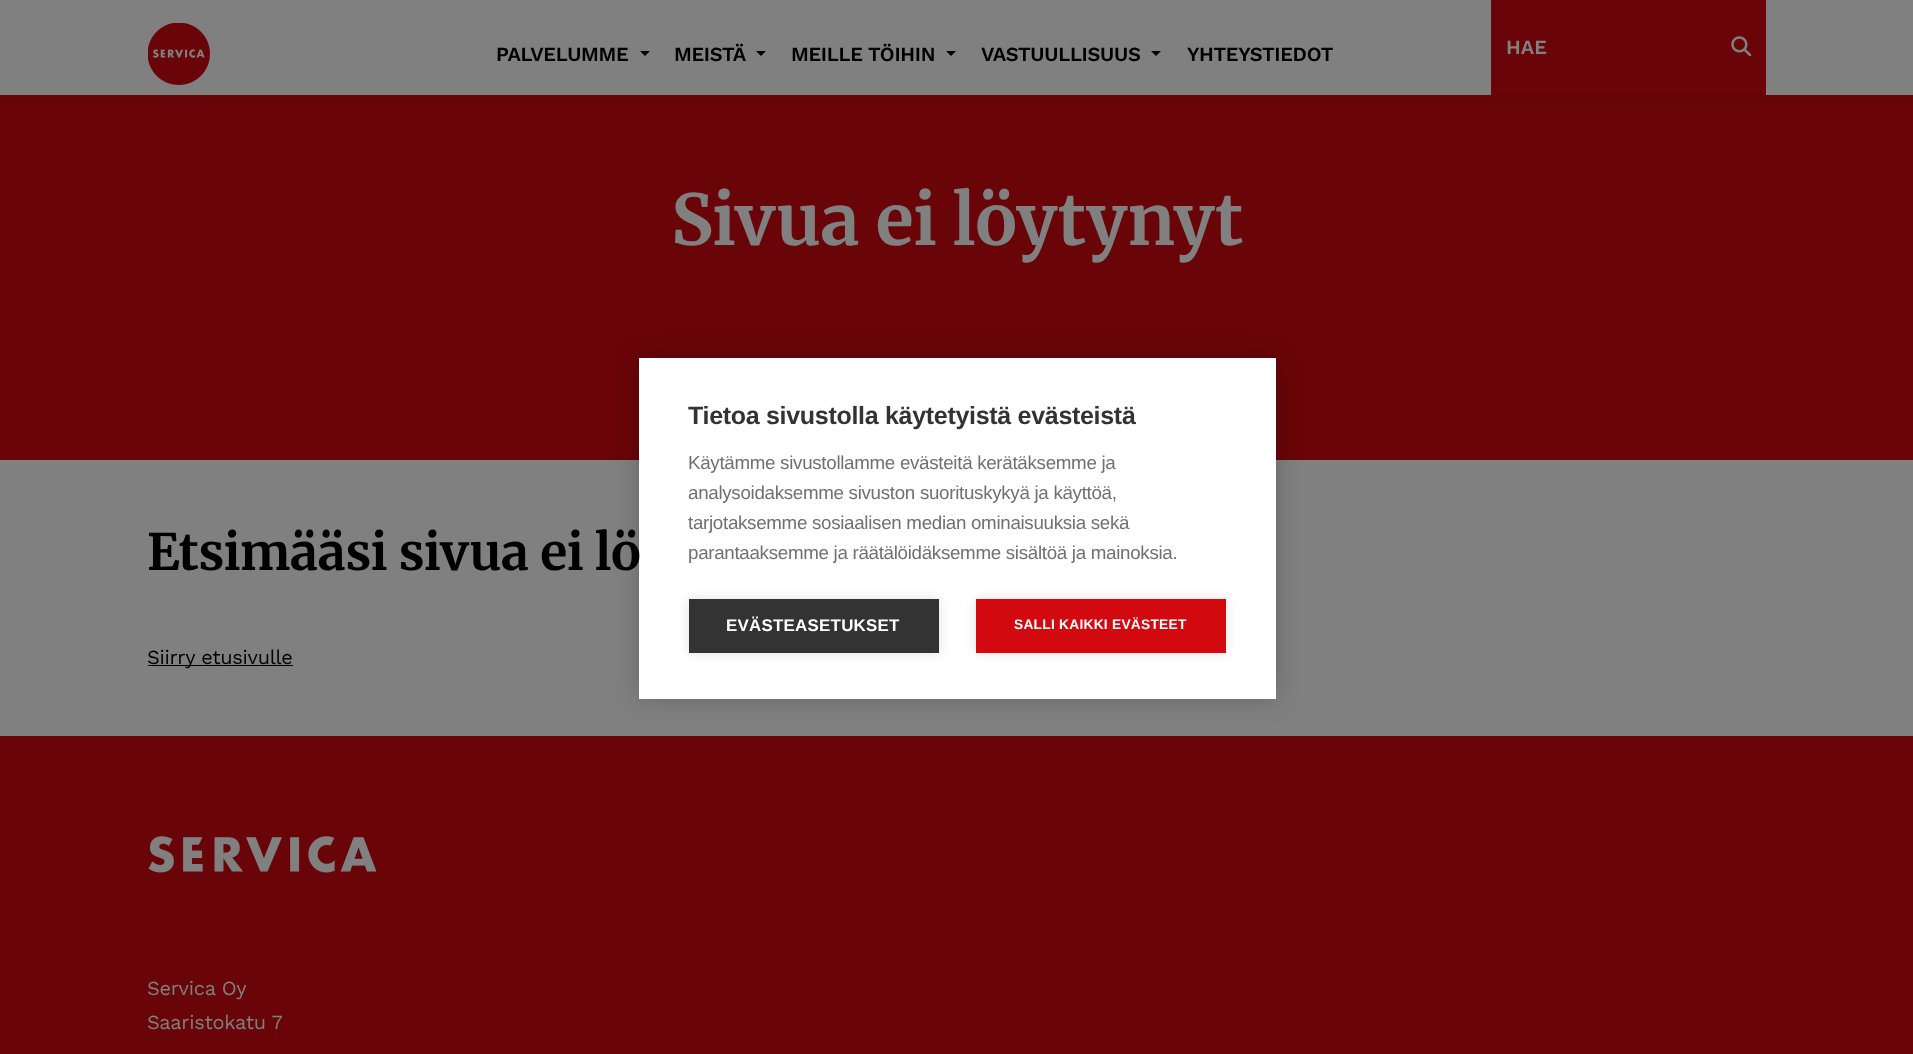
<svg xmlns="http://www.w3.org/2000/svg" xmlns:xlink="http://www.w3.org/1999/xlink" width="1913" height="1054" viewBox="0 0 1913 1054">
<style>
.cls-1{font:600 20px Work Sans;letter-spacing:-0.3px;fill:#000000}
.cls-2{font:600 20px Work Sans;fill:#808080}
.cls-3{font:bold 70px Merriweather;letter-spacing:-0.3px;fill:#808080}
.cls-4{font:bold 50px Merriweather;letter-spacing:-0.3px;fill:#000000}
.cls-5{font:20px Work Sans;letter-spacing:-0.3px;fill:#000000}
.cls-6{font:bold 25px Liberation Sans;letter-spacing:-0.3px;fill:#333333}
.cls-7{font:18.75px Liberation Sans;letter-spacing:-0.3px;fill:#707070}
.cls-8{font:bold 16.9px Liberation Sans;letter-spacing:0.25px;fill:#ffffff}
.cls-9{font:bold 13.75px Liberation Sans;letter-spacing:0.25px;fill:#ffffff}
.cls-10{font:20px Work Sans;letter-spacing:-0.3px;fill:#808080}
</style>
<rect width="100%" height="100%" fill="#808080"/>
<rect fill="#690508" x="0" y="95" width="1913" height="365"/>
<rect fill="#000000" fill-opacity="0.1" filter="blur(6px)" x="0" y="0" width="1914" height="95"/>
<rect fill="#808080" x="0" y="0" width="1913" height="95"/>
<image xlink:href="image0.png" x="148" y="23" width="62" height="62"/>
<path fill="#000000" d="M640 51H650L645 56Z"/>
<path fill="#000000" d="M756 51H766L761 56Z"/>
<path fill="#000000" d="M946 51H956L951 56Z"/>
<path fill="#000000" d="M1151 51H1161L1156 56Z"/>
<rect fill="#690508" x="1491" y="0" width="275" height="95"/>
<image xlink:href="image1.png" x="1731" y="36" width="21" height="21"/>
<rect fill="#000000" x="148" y="665" width="145" height="1"/>
<rect fill="#690508" x="0" y="736" width="1913" height="318"/>
<rect fill="#000000" fill-opacity="0.2" filter="blur(12.5px)" x="639" y="358" width="637" height="341"/>
<rect fill="#ffffff" x="639" y="358" width="637" height="341"/>
<rect fill="#000000" fill-opacity="0.12" filter="blur(6px)" x="689" y="599" width="250" height="54"/>
<rect fill="#333333" x="689" y="599" width="250" height="54"/>
<rect fill="#000000" fill-opacity="0.12" filter="blur(6px)" x="976" y="599" width="250" height="54"/>
<rect fill="#d20a10" x="976" y="599" width="250" height="54"/>
<image xlink:href="image2.png" x="148" y="836" width="228" height="37"/>
<text class="cls-1" x="496" y="61">PALVELUMME</text>
<text class="cls-1" x="674" y="61">MEISTÄ</text>
<text class="cls-1" x="791" y="61">MEILLE TÖIHIN</text>
<text class="cls-1" x="981" y="61">VASTUULLISUUS</text>
<text class="cls-1" x="1187" y="61">YHTEYSTIEDOT</text>
<text class="cls-2" x="1506" y="54">HAE</text>
<text class="cls-3" x="671" y="245">Sivua ei löytynyt</text>
<text class="cls-4" x="147" y="570">Etsimääsi sivua ei lö</text>
<text class="cls-5" x="147" y="664">Siirry etusivulle</text>
<text class="cls-6" x="688" y="424">Tietoa sivustolla käytetyistä evästeistä</text>
<text class="cls-7"><tspan x="688" y="469">Käytämme sivustollamme evästeitä kerätäksemme ja</tspan><tspan x="688" y="499">analysoidaksemme sivuston suorituskykyä ja käyttöä,</tspan><tspan x="688" y="529">tarjotaksemme sosiaalisen median ominaisuuksia sekä</tspan><tspan x="688" y="559">parantaaksemme ja räätälöidäksemme sisältöä ja mainoksia.</tspan></text>
<text class="cls-8" x="726" y="631">EVÄSTEASETUKSET</text>
<text class="cls-9" x="1014" y="629">SALLI KAIKKI EVÄSTEET</text>
<text class="cls-10"><tspan x="147" y="995">Servica Oy</tspan><tspan x="147" y="1029">Saaristokatu 7</tspan></text>
</svg>
